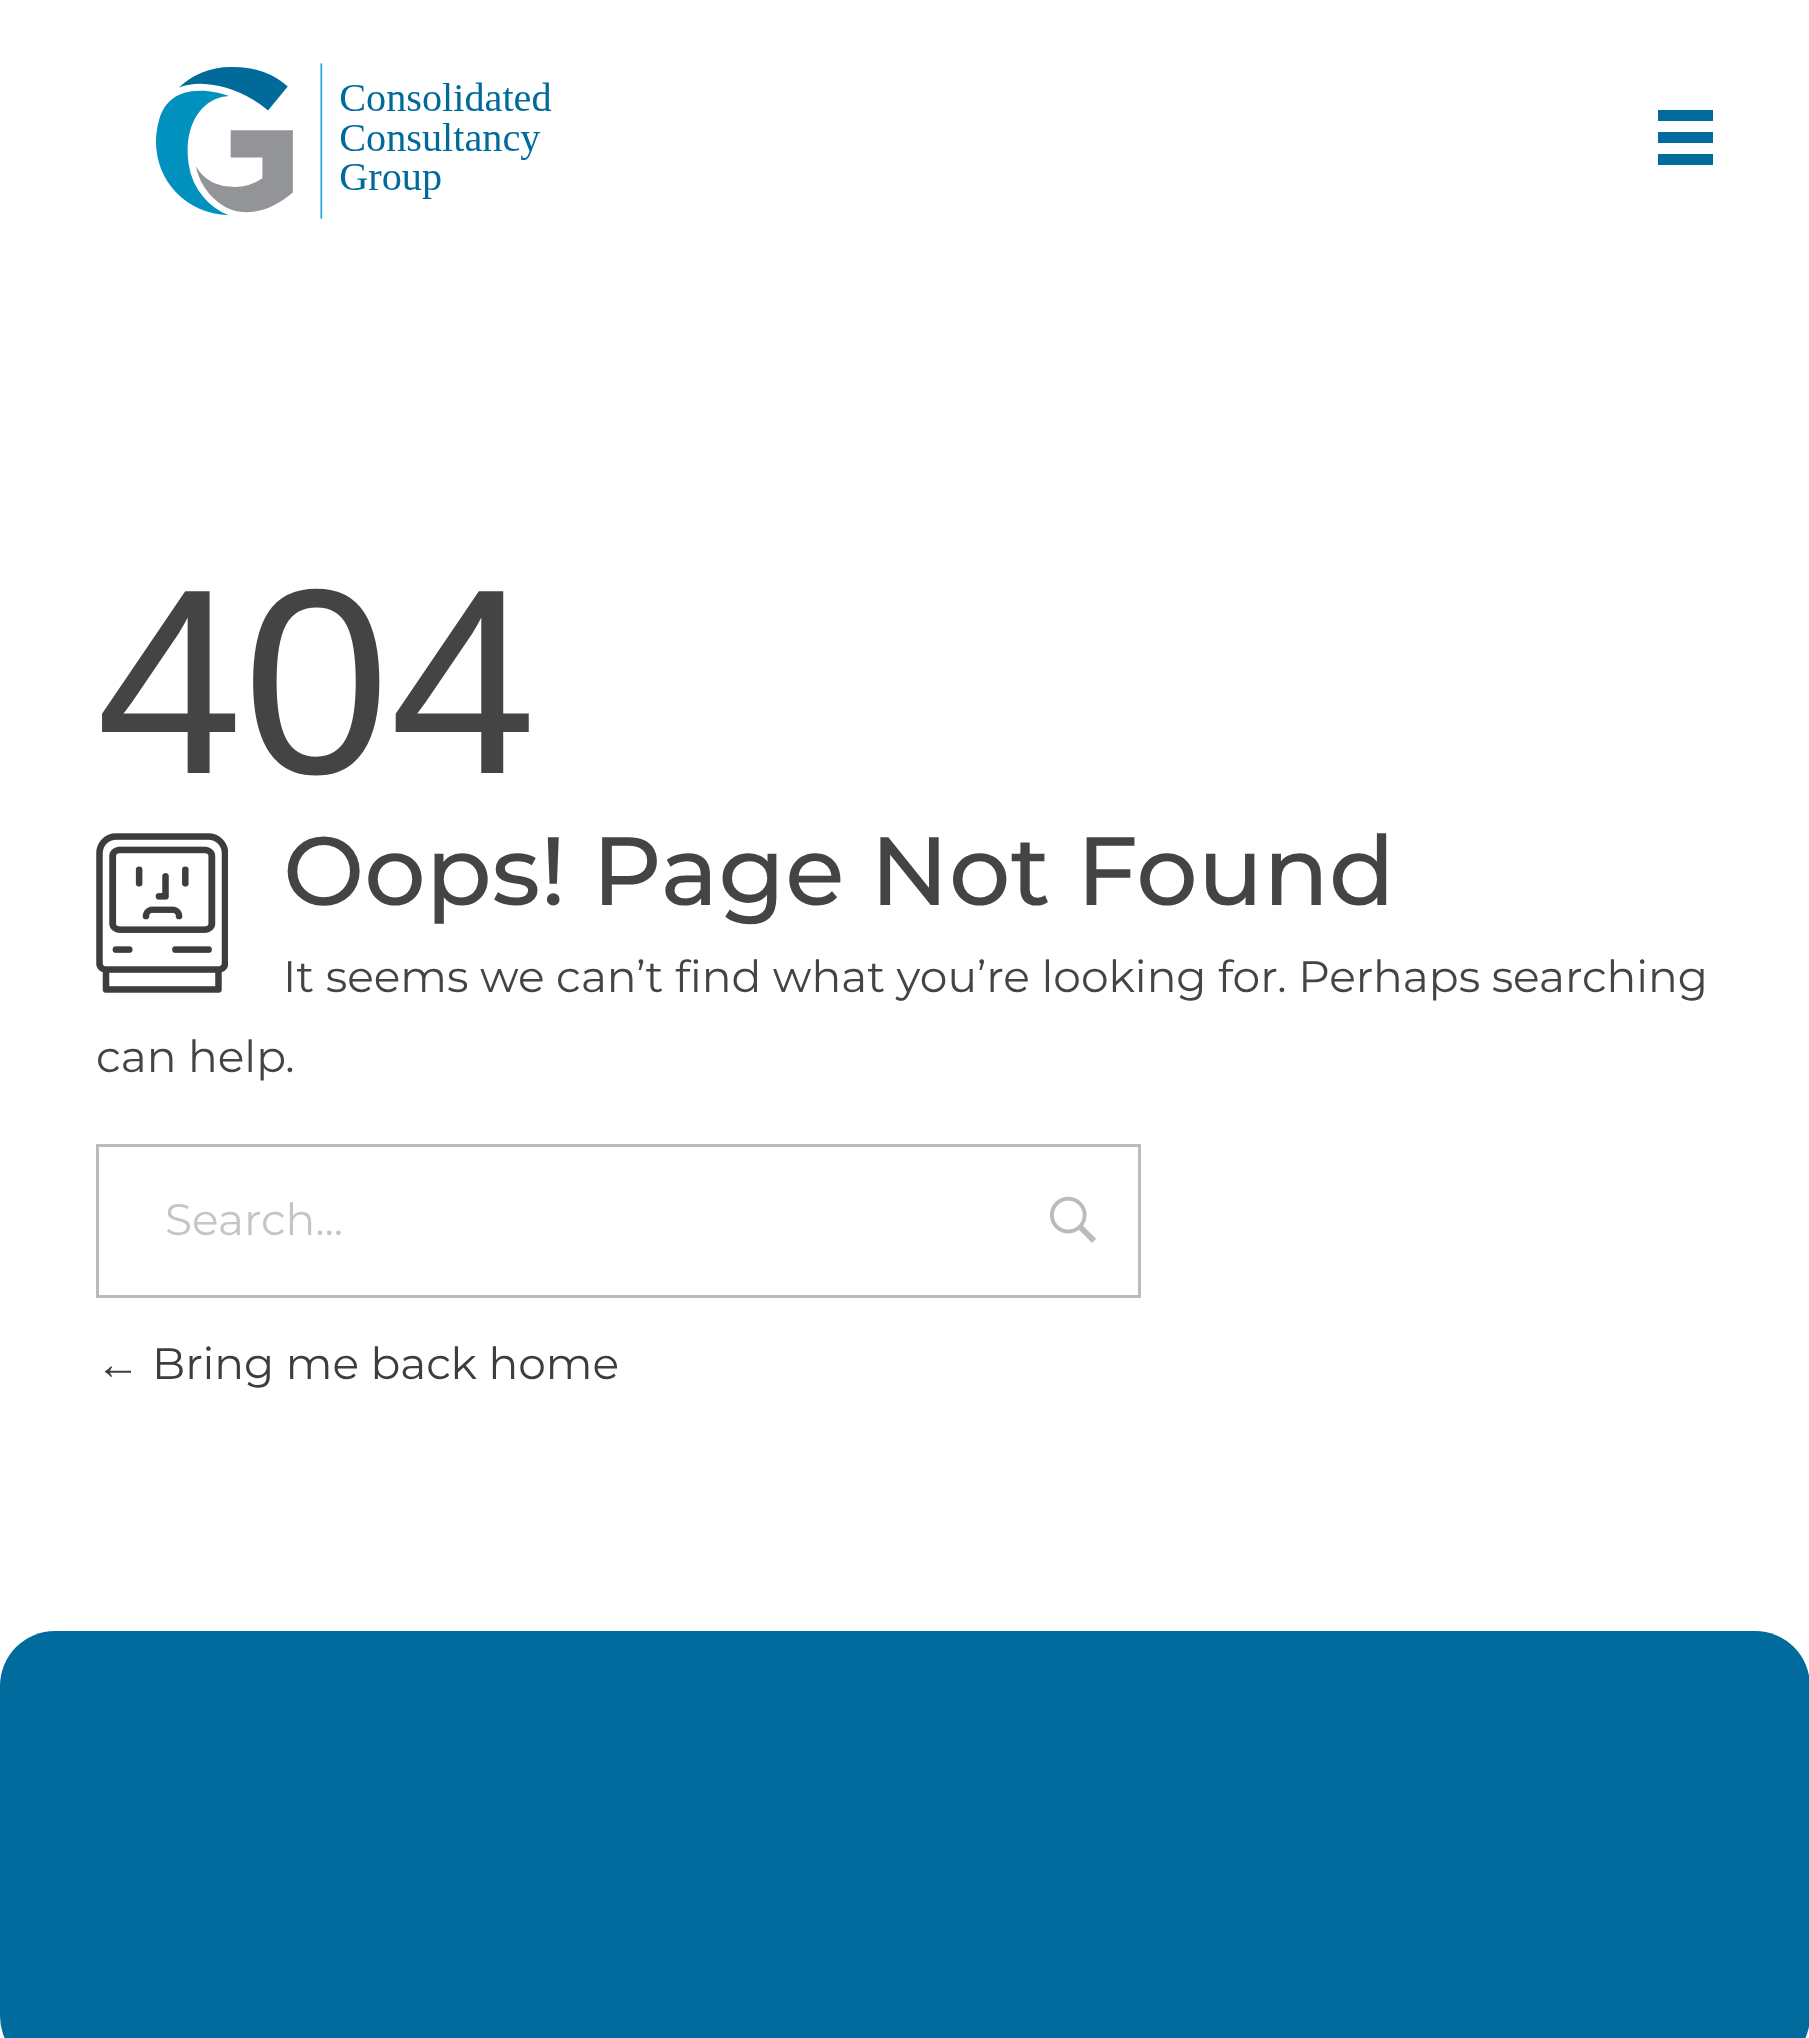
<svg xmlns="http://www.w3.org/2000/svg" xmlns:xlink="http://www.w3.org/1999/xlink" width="1809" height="2038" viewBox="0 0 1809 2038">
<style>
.cls-1{font:264px Liberation Sans;fill:#444444}
.cls-2{font:500 96.75px Montserrat;fill:#444444}
.cls-3{font:44px Montserrat;fill:#444444}
.cls-4{font:44px Montserrat;fill:#c5c5c5}
.cls-5{font:44px Liberation Sans;fill:#3d3d3d}
.cls-6{font:44px Montserrat;fill:#3d3d3d}
</style>
<rect width="100%" height="100%" fill="#ffffff"/>
<image xlink:href="image0.png" x="156" y="63" width="396" height="156"/>
<rect fill="#006b9c" x="1658" y="110" width="55" height="11"/>
<rect fill="#006b9c" x="1658" y="132" width="55" height="11"/>
<rect fill="#006b9c" x="1658" y="154" width="55" height="11"/>
<image xlink:href="image1.png" x="96" y="833" width="132" height="160"/>
<rect fill="none" stroke="#bbbbbb" stroke-width="3" x="97.5" y="1145.5" width="1042" height="151"/>
<image xlink:href="image2.png" x="1050" y="1196" width="46" height="47"/>
<rect fill="#006b9c" x="0" y="1631" width="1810" height="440" rx="55"/>
<text class="cls-1" x="96" y="773">404</text>
<text class="cls-2" x="283" y="905">Oops! Page Not Found</text>
<text class="cls-3" x="283" y="992">It seems we can’t find what you’re looking for. Perhaps searching</text>
<text class="cls-3" x="96" y="1072">can help.</text>
<text class="cls-4" x="165" y="1235">Search...</text>
<text class="cls-5" x="96" y="1379">←</text>
<text class="cls-6" x="152" y="1379">Bring me back home</text>
</svg>
